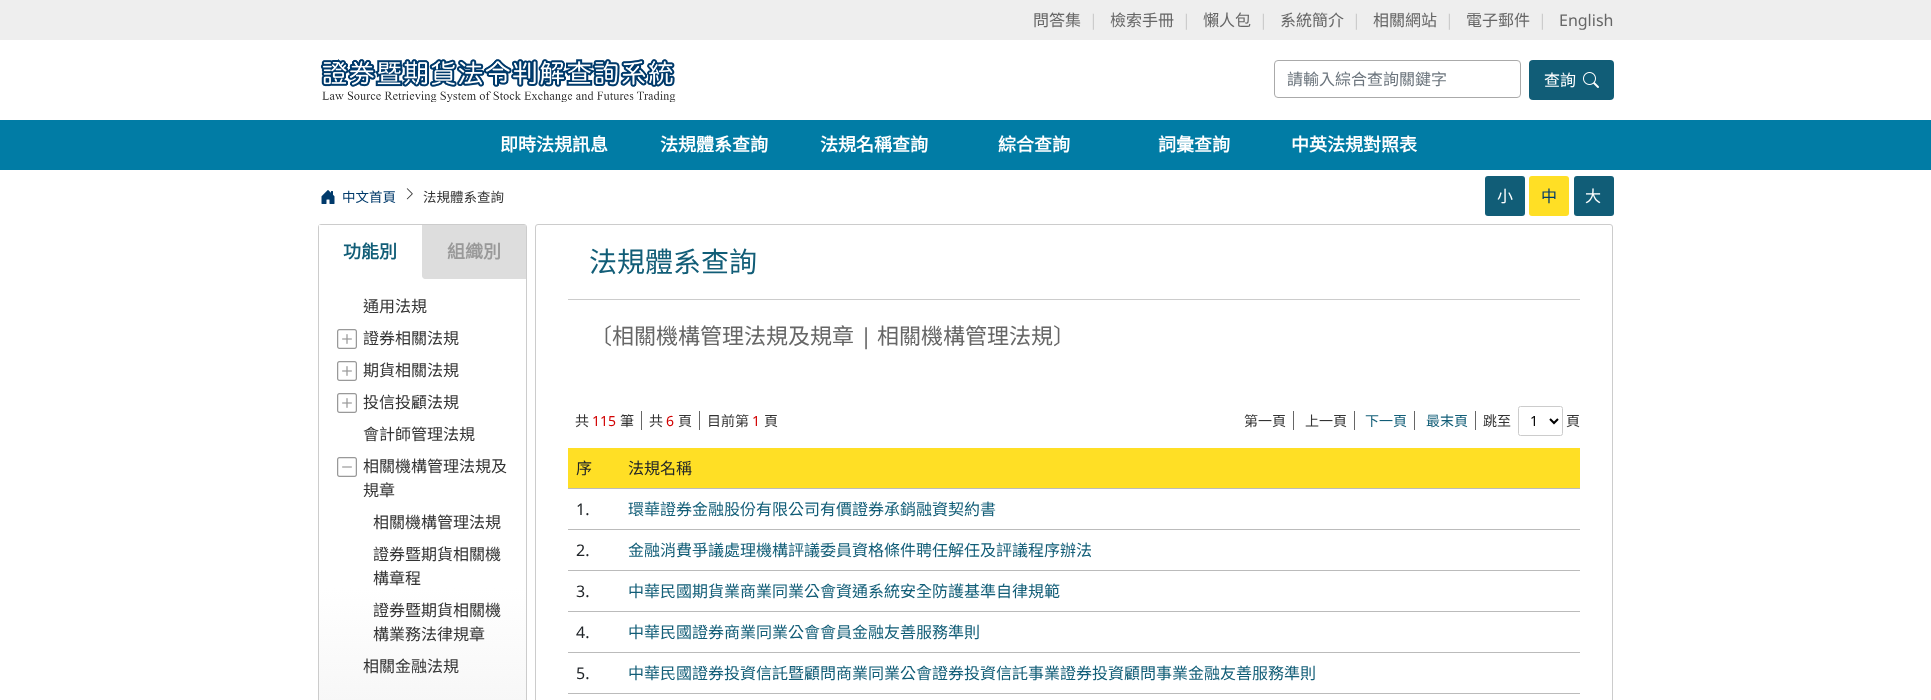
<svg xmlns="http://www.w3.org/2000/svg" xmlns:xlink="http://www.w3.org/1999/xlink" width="1931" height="700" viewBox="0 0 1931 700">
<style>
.cls-1{font:16px Noto Sans CJK TC;fill:#666666}
.cls-2{font:16px Noto Sans;fill:#cccccc}
.cls-3{font:16px Noto Sans;fill:#666666}
.cls-4{font:16px Noto Sans CJK TC;fill:#6c757d}
.cls-5{font:16px Noto Sans CJK TC;fill:#ffffff}
.cls-6{font:bold 18px Noto Sans CJK TC;fill:#ffffff}
.cls-7{font:13.5px Noto Sans CJK TC;fill:#003a6b}
.cls-8{font:13.5px Noto Sans CJK TC;fill:#333333}
.cls-9{font:16px Noto Sans CJK TC;fill:#003a6b}
.cls-10{font:bold 18px Noto Sans CJK TC;fill:#115d77}
.cls-11{font:bold 18px Noto Sans CJK TC;fill:#999999}
.cls-12{font:16px Noto Sans CJK TC;fill:#333333}
.cls-13{font:28px Noto Sans CJK TC;fill:#115d77}
.cls-14{font:22px Noto Sans CJK TC;fill:#666666}
.cls-15{font:22px Noto Sans;fill:#666666}
.cls-16{font:14px Noto Sans CJK TC;fill:#333333}
.cls-17{font:14px Noto Sans;fill:#d20404}
.cls-18{font:14px Noto Sans CJK TC;fill:#115d77}
.cls-19{font:14px Noto Sans;fill:#000000}
.cls-20{font:16px Noto Sans CJK TC;fill:#212529}
.cls-21{font:16px Noto Sans;fill:#212529}
.cls-22{font:16px Noto Sans CJK TC;fill:#115d77}
</style>
<defs>
<clipPath id="clip1"><rect x="318" y="224" width="209" height="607" rx="3"/></clipPath>
<linearGradient id="g1" gradientUnits="userSpaceOnUse" x1="422" y1="225" x2="423" y2="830"><stop offset="0.6" stop-color="#ffffff"/><stop offset="1" stop-color="#eeeeee"/></linearGradient>
</defs>
<rect width="100%" height="100%" fill="#ffffff"/>
<rect fill="#eeeeee" x="0" y="0" width="1931" height="40"/>
<image xlink:href="image0.png" x="320" y="59" width="356" height="43"/>
<rect fill="none" stroke="#aaaaaa" x="1274.5" y="60.5" width="246" height="37" rx="3.5"/>
<rect fill="#115d77" x="1529" y="60" width="85" height="40" rx="4"/>
<image xlink:href="image1.png" x="1583" y="72" width="16" height="16"/>
<rect fill="#017ca5" x="0" y="120" width="1931" height="50"/>
<image xlink:href="image2.png" x="321" y="190" width="14" height="14"/>
<image xlink:href="image3.png" x="406" y="188" width="7" height="12"/>
<rect fill="#115d77" x="1485" y="176" width="40" height="40" rx="3"/>
<rect fill="#ffdf25" x="1529" y="176" width="40" height="40" rx="3"/>
<rect fill="#115d77" x="1574" y="176" width="40" height="40" rx="3"/>
<g clip-path="url(#clip1)">
<rect fill="url(#g1)" x="318" y="225" width="209" height="475"/>
</g>
<rect fill="none" stroke="#cccccc" x="318.5" y="224.5" width="208" height="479" rx="2.5"/>
<path fill="#ffffff" d="M319 225H419C420.5 225 422 226.5 422 228V279H322C320.5 279 319 277.5 319 276Z"/>
<path fill="#dddddd" d="M422 225H526V279H425C423.5 279 422 277.5 422 276Z"/>
<image xlink:href="image4.png" x="337" y="329" width="20" height="20"/>
<image xlink:href="image4.png" x="337" y="361" width="20" height="20"/>
<image xlink:href="image4.png" x="337" y="393" width="20" height="20"/>
<image xlink:href="image5.png" x="337" y="457" width="20" height="20"/>
<rect fill="none" stroke="#cccccc" x="535.5" y="224.5" width="1077" height="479" rx="2.5"/>
<rect fill="#cccccc" x="568" y="299" width="1012" height="1"/>
<rect fill="#666666" x="641" y="411" width="1" height="19"/>
<rect fill="#666666" x="699" y="411" width="1" height="19"/>
<rect fill="#666666" x="1293" y="411" width="1" height="19"/>
<rect fill="#666666" x="1354" y="411" width="1" height="19"/>
<rect fill="#666666" x="1414" y="411" width="1" height="19"/>
<rect fill="#666666" x="1475" y="411" width="1" height="19"/>
<rect fill="none" stroke="#cccccc" x="1518.5" y="406.5" width="44" height="29" rx="2"/>
<path fill="none" stroke="#000000" stroke-width="2" d="M1550 419L1554 423L1558 419"/>
<rect fill="#bbbbbb" x="568" y="488" width="1012" height="1"/>
<rect fill="#ffdf25" x="568" y="448" width="1012" height="40"/>
<rect fill="#bbbbbb" x="568" y="529" width="1012" height="1"/>
<rect fill="#bbbbbb" x="568" y="570" width="1012" height="1"/>
<rect fill="#bbbbbb" x="568" y="611" width="1012" height="1"/>
<rect fill="#bbbbbb" x="568" y="652" width="1012" height="1"/>
<rect fill="#bbbbbb" x="568" y="693" width="1012" height="1"/>
<text class="cls-1" x="1033" y="26">問答集</text>
<text class="cls-2" x="1089" y="26">|</text>
<text class="cls-1" x="1110" y="26">檢索手冊</text>
<text class="cls-2" x="1182" y="26">|</text>
<text class="cls-1" x="1203" y="26">懶人包</text>
<text class="cls-2" x="1259" y="26">|</text>
<text class="cls-1" x="1280" y="26">系統簡介</text>
<text class="cls-2" x="1352" y="26">|</text>
<text class="cls-1" x="1373" y="26">相關網站</text>
<text class="cls-2" x="1445" y="26">|</text>
<text class="cls-1" x="1466" y="26">電子郵件</text>
<text class="cls-2" x="1538" y="26">|</text>
<text class="cls-3" x="1559" y="26">English</text>
<text class="cls-4" x="1287" y="85">請輸入綜合查詢關鍵字</text>
<text class="cls-5" x="1544" y="86">查詢</text>
<text class="cls-6" x="500" y="151">即時法規訊息</text>
<text class="cls-6" x="660" y="151">法規體系查詢</text>
<text class="cls-6" x="820" y="151">法規名稱查詢</text>
<text class="cls-6" x="998" y="151">綜合查詢</text>
<text class="cls-6" x="1158" y="151">詞彙查詢</text>
<text class="cls-6" x="1291" y="151">中英法規對照表</text>
<text class="cls-7" x="342" y="202">中文首頁</text>
<text class="cls-8" x="423" y="202">法規體系查詢</text>
<text class="cls-5" x="1497" y="202">小</text>
<text class="cls-9" x="1541" y="202">中</text>
<text class="cls-5" x="1585" y="202">大</text>
<text class="cls-10" x="343" y="258">功能別</text>
<text class="cls-11" x="447" y="258">組織別</text>
<text class="cls-12" x="363" y="312">通用法規</text>
<text class="cls-12" x="363" y="344">證券相關法規</text>
<text class="cls-12" x="363" y="376">期貨相關法規</text>
<text class="cls-12" x="363" y="408">投信投顧法規</text>
<text class="cls-12" x="363" y="440">會計師管理法規</text>
<text class="cls-12"><tspan x="363" y="472">相關機構管理法規及</tspan><tspan x="363" y="496">規章</tspan></text>
<text class="cls-12" x="373" y="528">相關機構管理法規</text>
<text class="cls-12"><tspan x="373" y="560">證券暨期貨相關機</tspan><tspan x="373" y="584">構章程</tspan></text>
<text class="cls-12"><tspan x="373" y="616">證券暨期貨相關機</tspan><tspan x="373" y="640">構業務法律規章</tspan></text>
<text class="cls-12" x="363" y="672">相關金融法規</text>
<text class="cls-13" x="589" y="272">法規體系查詢</text>
<text class="cls-14" x="590" y="344">〔相關機構管理法規及規章</text>
<text class="cls-15" x="860" y="344">|</text>
<text class="cls-14" x="877" y="344">相關機構管理法規〕</text>
<text class="cls-16" x="575" y="426">共</text>
<text class="cls-17" x="592" y="426">115</text>
<text class="cls-16" x="620" y="426">筆</text>
<text class="cls-16" x="649" y="426">共</text>
<text class="cls-17" x="666" y="426">6</text>
<text class="cls-16" x="678" y="426">頁</text>
<text class="cls-16" x="707" y="426">目前第</text>
<text class="cls-17" x="752" y="426">1</text>
<text class="cls-16" x="764" y="426">頁</text>
<text class="cls-16" x="1244" y="426">第一頁</text>
<text class="cls-16" x="1305" y="426">上一頁</text>
<text class="cls-18" x="1365" y="426">下一頁</text>
<text class="cls-18" x="1426" y="426">最末頁</text>
<text class="cls-16" x="1483" y="426">跳至</text>
<text class="cls-19" x="1530" y="426">1</text>
<text class="cls-16" x="1566" y="426">頁</text>
<text class="cls-20" x="576" y="474">序</text>
<text class="cls-20" x="628" y="474">法規名稱</text>
<text class="cls-21" x="576" y="515">1.</text>
<text class="cls-22" x="628" y="515">環華證券金融股份有限公司有價證券承銷融資契約書</text>
<text class="cls-21" x="576" y="556">2.</text>
<text class="cls-22" x="628" y="556">金融消費爭議處理機構評議委員資格條件聘任解任及評議程序辦法</text>
<text class="cls-21" x="576" y="597">3.</text>
<text class="cls-22" x="628" y="597">中華民國期貨業商業同業公會資通系統安全防護基準自律規範</text>
<text class="cls-21" x="576" y="638">4.</text>
<text class="cls-22" x="628" y="638">中華民國證券商業同業公會會員金融友善服務準則</text>
<text class="cls-21" x="576" y="679">5.</text>
<text class="cls-22" x="628" y="679">中華民國證券投資信託暨顧問商業同業公會證券投資信託事業證券投資顧問事業金融友善服務準則</text>
</svg>
